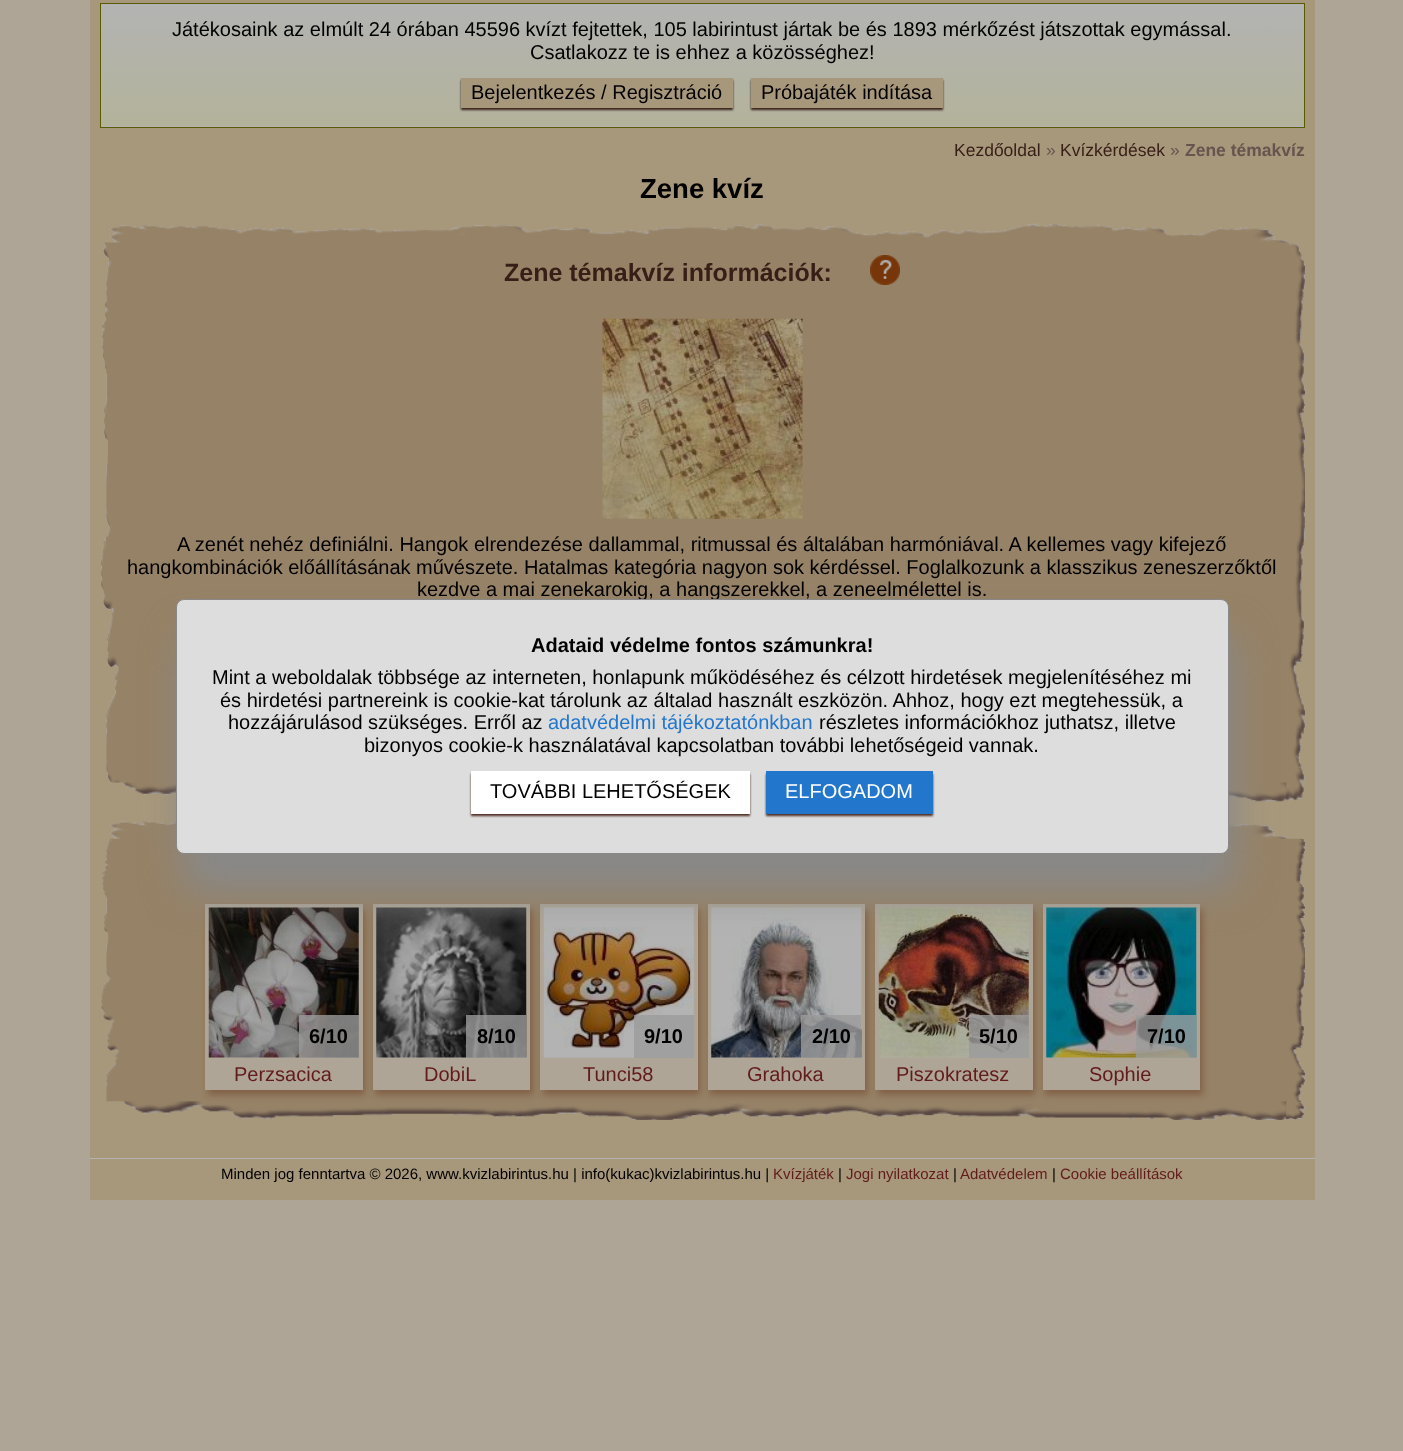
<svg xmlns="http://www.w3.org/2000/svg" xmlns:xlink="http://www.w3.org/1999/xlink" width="1403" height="1451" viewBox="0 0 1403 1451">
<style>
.cls-1{font:20px Liberation Sans;fill:#000000}
.cls-2{font:17.5px Liberation Sans;fill:#371e17}
.cls-3{font:17.5px Liberation Sans;fill:#66544e}
.cls-4{font:bold 17.5px Liberation Sans;fill:#66544e}
.cls-5{font:bold 27.5px Liberation Sans;fill:#000000}
.cls-6{font:bold 25px Liberation Sans;fill:#371e17}
.cls-7{font:bold 20px Liberation Sans;fill:#000000}
.cls-8{font:20px Liberation Sans;fill:#621b1b}
.cls-9{font:15px Liberation Sans;fill:#000000}
.cls-10{font:15px Liberation Sans;fill:#621b1b}
.cls-11{font:20px Liberation Sans;fill:#2277cc}
.cls-12{font:20px Liberation Sans;fill:#ffffff}
</style>
<defs>
<linearGradient id="g1" gradientUnits="userSpaceOnUse" x1="703" y1="3.7" x2="703" y2="126"><stop offset="0" stop-color="#b3b3b3"/><stop offset="1" stop-color="#b3b39b"/></linearGradient>
<linearGradient id="g2" gradientUnits="userSpaceOnUse" x1="703" y1="126" x2="703" y2="249"><stop offset="0" stop-color="#b3b3b3"/><stop offset="1" stop-color="#b3b39b"/></linearGradient>
</defs>
<rect width="100%" height="100%" fill="#aea597"/>
<rect fill="#a8987b" x="90" y="0" width="1225" height="1200"/>
<rect fill="url(#g1)" x="101" y="4" width="1203" height="122"/>
<rect fill="url(#g2)" x="100" y="126" width="1205" height="1"/>
<rect fill="none" stroke="#5a5a00" x="100.5" y="3.5" width="1204" height="124"/>
<rect fill="#371e17" filter="blur(1px)" x="461" y="80" width="272" height="30"/>
<rect fill="#a8987b" x="461" y="78" width="272" height="30"/>
<rect fill="#371e17" filter="blur(1px)" x="751" y="80" width="192" height="30"/>
<rect fill="#a8987b" x="751" y="78" width="192" height="30"/>
<rect fill="#968266" x="120" y="242" width="1167" height="541"/>
<image xlink:href="image0.png" x="100" y="223" width="1205" height="579"/>
<image xlink:href="image1.png" x="870" y="255" width="30" height="30"/>
<image xlink:href="image2.png" x="602" y="318" width="201" height="201"/>
<rect fill="#968266" x="120" y="838" width="1167" height="264"/>
<image xlink:href="image3.png" x="100" y="820" width="1205" height="300"/>
<rect fill="#5b1d0b" fill-opacity="0.33" filter="blur(3px)" x="208" y="909" width="157" height="186"/>
<rect fill="#aea597" x="205" y="904" width="158" height="186"/>
<rect fill="#aea79d" x="209" y="908" width="150" height="150"/>
<image xlink:href="image4.png" x="208" y="907" width="151" height="151"/>
<rect fill="#9b9b9b" fill-opacity="0.8" x="299" y="1015" width="60" height="43"/>
<rect fill="#5b1d0b" fill-opacity="0.33" filter="blur(3px)" x="375" y="909" width="158" height="186"/>
<rect fill="#aea597" x="373" y="904" width="157" height="186"/>
<rect fill="#aea79d" x="376" y="908" width="150" height="150"/>
<image xlink:href="image5.png" x="376" y="907" width="151" height="151"/>
<rect fill="#9b9b9b" fill-opacity="0.8" x="466" y="1015" width="60" height="43"/>
<rect fill="#5b1d0b" fill-opacity="0.33" filter="blur(3px)" x="543" y="909" width="157" height="186"/>
<rect fill="#aea597" x="540" y="904" width="158" height="186"/>
<rect fill="#aea79d" x="544" y="908" width="150" height="150"/>
<image xlink:href="image6.png" x="543" y="907" width="151" height="151"/>
<rect fill="#9b9b9b" fill-opacity="0.8" x="634" y="1015" width="60" height="43"/>
<rect fill="#5b1d0b" fill-opacity="0.33" filter="blur(3px)" x="710" y="909" width="158" height="186"/>
<rect fill="#aea597" x="708" y="904" width="157" height="186"/>
<rect fill="#aea79d" x="711" y="908" width="150" height="150"/>
<image xlink:href="image7.png" x="711" y="907" width="151" height="151"/>
<rect fill="#9b9b9b" fill-opacity="0.8" x="801" y="1015" width="60" height="43"/>
<rect fill="#5b1d0b" fill-opacity="0.33" filter="blur(3px)" x="878" y="909" width="157" height="186"/>
<rect fill="#aea597" x="875" y="904" width="158" height="186"/>
<rect fill="#aea79d" x="879" y="908" width="150" height="150"/>
<image xlink:href="image8.png" x="878" y="907" width="151" height="151"/>
<rect fill="#9b9b9b" fill-opacity="0.8" x="969" y="1015" width="60" height="43"/>
<rect fill="#5b1d0b" fill-opacity="0.33" filter="blur(3px)" x="1045" y="909" width="158" height="186"/>
<rect fill="#aea597" x="1043" y="904" width="157" height="186"/>
<rect fill="#aea79d" x="1046" y="908" width="150" height="150"/>
<image xlink:href="image9.png" x="1046" y="907" width="151" height="151"/>
<rect fill="#9b9b9b" fill-opacity="0.8" x="1136" y="1015" width="60" height="43"/>
<rect fill="#b3b3b3" x="90" y="1158" width="1225" height="1"/>
<rect fill="#888888" filter="blur(19px)" x="183" y="636" width="1052" height="255" rx="8"/>
<text class="cls-1" x="172" y="36">Játékosaink az elmúlt 24 órában 45596 kvízt fejtettek, 105 labirintust jártak be és 1893 mérkőzést játszottak egymással.</text>
<text class="cls-1" x="530" y="59">Csatlakozz te is ehhez a közösséghez!</text>
<text class="cls-1" x="471" y="99">Bejelentkezés / Regisztráció</text>
<text class="cls-1" x="761" y="99">Próbajáték indítása</text>
<text class="cls-2" x="954" y="156">Kezdőoldal</text>
<text class="cls-3" x="1046" y="156">»</text>
<text class="cls-2" x="1060" y="156">Kvízkérdések</text>
<text class="cls-3" x="1170" y="156">»</text>
<text class="cls-4" x="1185" y="156">Zene témakvíz</text>
<text class="cls-5" x="640" y="198">Zene kvíz</text>
<text class="cls-6" x="504" y="281">Zene témakvíz információk:</text>
<text class="cls-1" x="177" y="551">A zenét nehéz definiálni. Hangok elrendezése dallammal, ritmussal és általában harmóniával. A kellemes vagy kifejező</text>
<text class="cls-1" x="127" y="574">hangkombinációk előállításának művészete. Hatalmas kategória nagyon sok kérdéssel. Foglalkozunk a klasszikus zeneszerzőktől</text>
<text class="cls-1" x="417" y="596">kezdve a mai zenekarokig, a hangszerekkel, a zeneelmélettel is.</text>
<text class="cls-7" x="309" y="1043">6/10</text>
<text class="cls-8" x="234" y="1081">Perzsacica</text>
<text class="cls-7" x="477" y="1043">8/10</text>
<text class="cls-8" x="424" y="1081">DobiL</text>
<text class="cls-7" x="644" y="1043">9/10</text>
<text class="cls-8" x="583" y="1081">Tunci58</text>
<text class="cls-7" x="812" y="1043">2/10</text>
<text class="cls-8" x="747" y="1081">Grahoka</text>
<text class="cls-7" x="979" y="1043">5/10</text>
<text class="cls-8" x="896" y="1081">Piszokratesz</text>
<text class="cls-7" x="1147" y="1043">7/10</text>
<text class="cls-8" x="1089" y="1081">Sophie</text>
<text class="cls-9" x="221" y="1179">Minden jog fenntartva © 2026, www.kvizlabirintus.hu | info(kukac)kvizlabirintus.hu |</text>
<text class="cls-10" x="773" y="1179">Kvízjáték</text>
<text class="cls-9" x="838" y="1179">|</text>
<text class="cls-10" x="846" y="1179">Jogi nyilatkozat</text>
<text class="cls-9" x="953" y="1179">|</text>
<text class="cls-10" x="960" y="1179">Adatvédelem</text>
<text class="cls-9" x="1052" y="1179">|</text>
<text class="cls-10" x="1060" y="1179">Cookie beállítások</text>
<rect fill="#dddddd" stroke="#888888" x="176.5" y="599.5" width="1052" height="254" rx="7.5"/>
<text class="cls-7" x="531" y="652">Adataid védelme fontos számunkra!</text>
<text class="cls-1" x="212" y="684">Mint a weboldalak többsége az interneten, honlapunk működéséhez és célzott hirdetések megjelenítéséhez mi</text>
<text class="cls-1" x="220" y="707">és hirdetési partnereink is cookie-kat tárolunk az általad használt eszközön. Ahhoz, hogy ezt megtehessük, a</text>
<text class="cls-1" x="228" y="729">hozzájárulásod szükséges. Erről az</text>
<text class="cls-11" x="548" y="729">adatvédelmi tájékoztatónkban</text>
<text class="cls-1" x="819" y="729">részletes információkhoz juthatsz, illetve</text>
<text class="cls-1" x="364" y="752">bizonyos cookie-k használatával kapcsolatban további lehetőségeid vannak.</text>
<rect fill="#4e2b21" filter="blur(1px)" x="471" y="774" width="279" height="42"/>
<rect fill="#ffffff" x="471" y="771" width="279" height="43"/>
<text class="cls-1" x="490" y="798">TOVÁBBI LEHETŐSÉGEK</text>
<rect fill="#4e2b21" filter="blur(1px)" x="766" y="774" width="167" height="42"/>
<rect fill="#2277cc" x="766" y="771" width="167" height="43"/>
<text class="cls-12" x="785" y="798">ELFOGADOM</text>
</svg>
